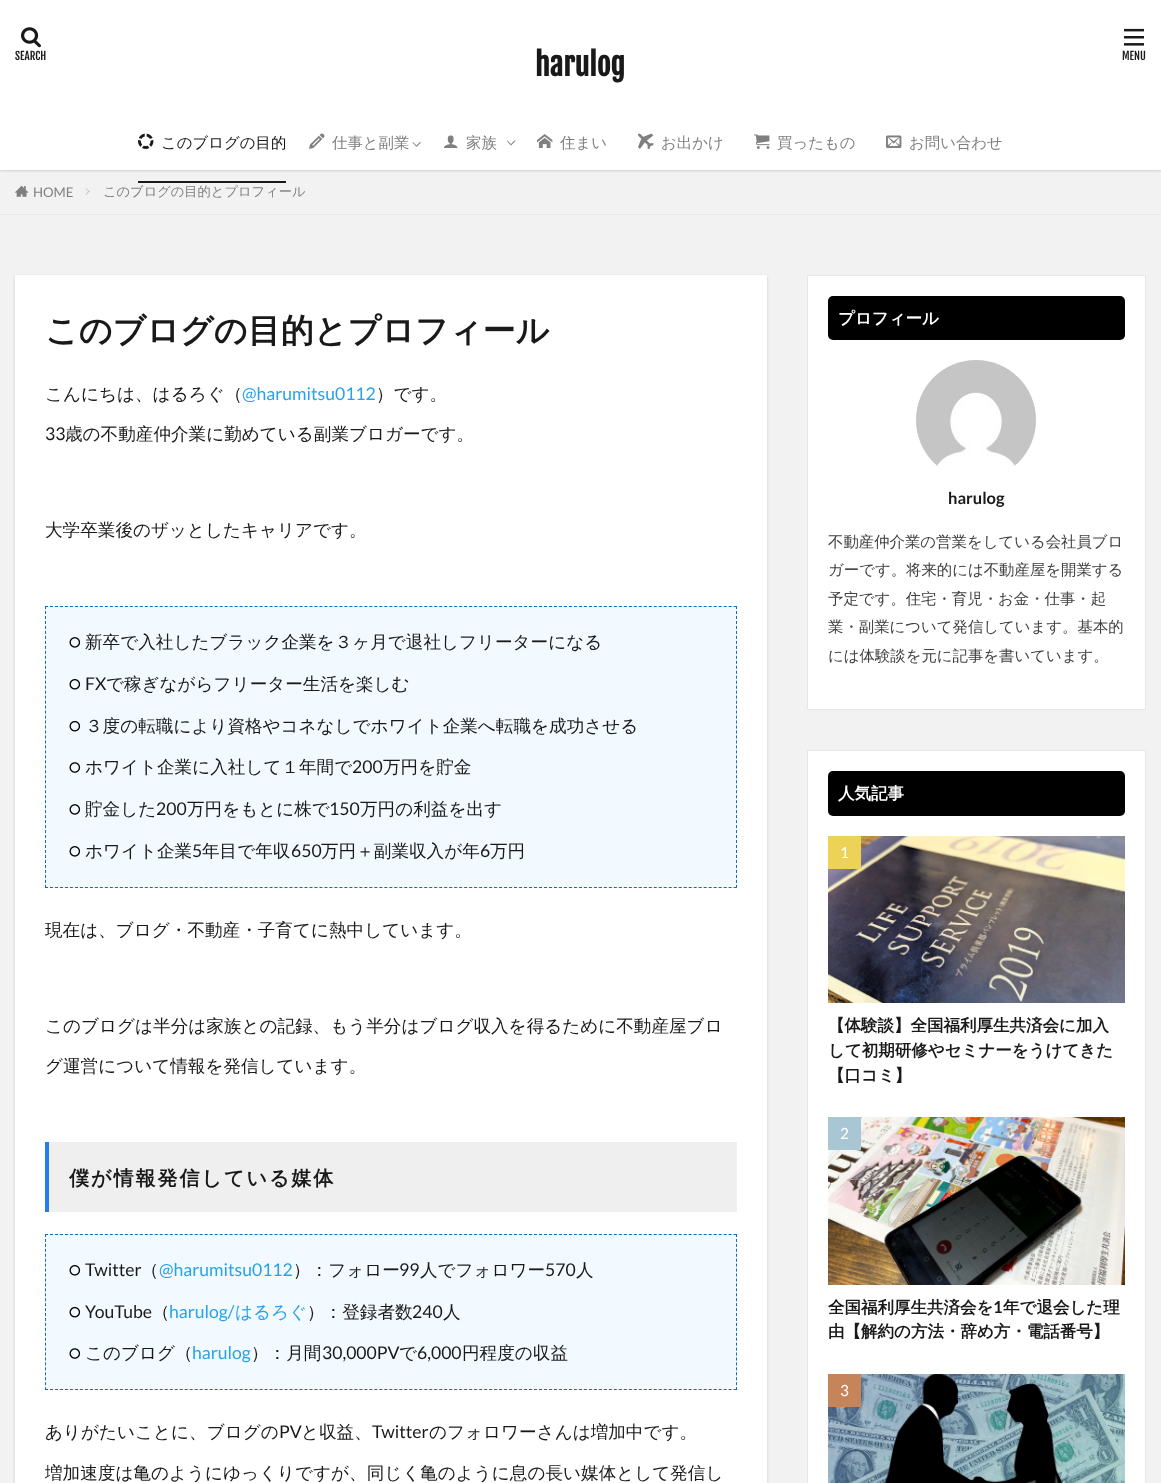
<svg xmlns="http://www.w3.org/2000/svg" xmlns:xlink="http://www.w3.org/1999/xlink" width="1161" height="1483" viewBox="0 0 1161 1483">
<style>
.cls-1{font:11px Fjalla One;fill:#191919}
.cls-2{font:bold 30px Fjalla One;fill:#191919}
.cls-3{font:500 15.4px WenQuanYi Zen Hei;fill:#191919}
.cls-4{font:500 15.4px WenQuanYi Zen Hei;fill:#7f7f7f}
.cls-5{font:13.25px Lato;fill:#7f7f7f}
.cls-6{font:500 13.25px WenQuanYi Zen Hei;fill:#7f7f7f}
.cls-7{font:bold 33px WenQuanYi Zen Hei;fill:#191919}
.cls-8{font:500 17.6px WenQuanYi Zen Hei;fill:#191919}
.cls-9{font:17.6px Lato;fill:#25a2ea}
.cls-10{font:17.6px Lato;fill:#191919}
.cls-11{font:bold 20px WenQuanYi Zen Hei;letter-spacing:2px;fill:#191919}
.cls-12{font:500 17.6px WenQuanYi Zen Hei;fill:#25a2ea}
.cls-13{font:bold 16.5px WenQuanYi Zen Hei;fill:#ffffff}
.cls-14{font:bold 16.5px Lato;fill:#191919}
.cls-15{font:500 15.4px WenQuanYi Zen Hei;fill:#404040}
.cls-16{font:15.4px Lato;fill:#ffffff}
.cls-17{font:bold 16.5px WenQuanYi Zen Hei;fill:#191919}
</style>
<rect width="100%" height="100%" fill="#f2f2f2"/>
<rect fill="#000000" fill-opacity="0.15" filter="blur(1px)" x="0" y="1" width="1161" height="170"/>
<rect fill="#ffffff" x="0" y="0" width="1161" height="170"/>
<image xlink:href="image0.png" x="21" y="27" width="20" height="21"/>
<image xlink:href="image1.png" x="1124" y="28" width="20" height="18"/>
<rect fill="#181818" x="138" y="181" width="148" height="2"/>
<image xlink:href="image2.png" x="138" y="133" width="16" height="16"/>
<image xlink:href="image3.png" x="309" y="133" width="16" height="16"/>
<path fill="#808080" d="M421 142.5L416.5 147V145.5L420 142Z"/>
<path fill="#808080" d="M416.5 147L412.5 142.5L413 142L416.5 145.5Z"/>
<image xlink:href="image4.png" x="444" y="135" width="14" height="13"/>
<path fill="#808080" d="M515.5 141L511 145.5V144L514.5 140.5ZM511 145.5L507 141L507.5 140.5L511 144Z"/>
<image xlink:href="image5.png" x="537" y="134" width="16" height="14"/>
<image xlink:href="image6.png" x="638" y="133" width="16" height="16"/>
<image xlink:href="image7.png" x="754" y="134" width="16" height="15"/>
<image xlink:href="image8.png" x="886" y="135" width="16" height="13"/>
<rect fill="#e6e6e6" x="0" y="214" width="1161" height="1"/>
<image xlink:href="image9.png" x="15" y="185" width="14" height="12"/>
<path fill="#bfbfbf" d="M86 188L89.5 191.5L89 192L85.5 188.5Z"/>
<path fill="#bfbfbf" d="M89 190.5L89.5 191.5L86 195L85.5 194.5Z"/>
<rect fill="#000000" fill-opacity="0.15" filter="blur(1.5px)" x="15" y="276" width="752" height="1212"/>
<rect fill="#ffffff" x="15" y="275" width="752" height="1208"/>
<rect fill="#f2faff" x="45" y="606" width="692" height="282"/>
<path fill="none" stroke="#0d6cbf" stroke-dasharray="3 1.99" d="M45 606.5H737"/>
<path fill="none" stroke="#0d6cbf" stroke-dasharray="3 1.98" d="M736.5 606V888"/>
<path fill="none" stroke="#0d6cbf" stroke-dasharray="3 1.99" d="M45 887.5H737"/>
<path fill="none" stroke="#0d6cbf" stroke-dasharray="3 1.98" d="M45.5 606V888"/>
<image xlink:href="image10.png" x="69" y="637" width="12" height="11"/>
<image xlink:href="image11.png" x="69" y="679" width="12" height="11"/>
<image xlink:href="image12.png" x="69" y="720" width="12" height="12"/>
<image xlink:href="image13.png" x="69" y="762" width="12" height="11"/>
<image xlink:href="image14.png" x="69" y="804" width="12" height="11"/>
<image xlink:href="image15.png" x="69" y="846" width="12" height="11"/>
<rect fill="#efefef" x="49" y="1142" width="688" height="70"/>
<rect fill="#257ced" x="45" y="1142" width="4" height="70"/>
<rect fill="#f2faff" x="45" y="1234" width="692" height="156"/>
<path fill="none" stroke="#0d6cbf" stroke-dasharray="3 1.99" d="M45 1234.5H737"/>
<path fill="none" stroke="#0d6cbf" stroke-dasharray="3 1.94" d="M736.5 1234V1390"/>
<path fill="none" stroke="#0d6cbf" stroke-dasharray="3 1.99" d="M45 1389.5H737"/>
<path fill="none" stroke="#0d6cbf" stroke-dasharray="3 1.94" d="M45.5 1234V1390"/>
<image xlink:href="image16.png" x="69" y="1265" width="12" height="11"/>
<image xlink:href="image17.png" x="69" y="1306" width="12" height="12"/>
<image xlink:href="image18.png" x="69" y="1348" width="12" height="11"/>
<rect fill="#ffffff" stroke="#e6e6e6" x="807.5" y="275.5" width="338" height="434"/>
<rect fill="#000000" x="828" y="296" width="297" height="44" rx="5"/>
<image xlink:href="image19.png" x="916" y="360" width="120" height="107"/>
<rect fill="#ffffff" stroke="#e6e6e6" x="807.5" y="750.5" width="338" height="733"/>
<rect fill="#000000" x="828" y="771" width="297" height="45" rx="5"/>
<image xlink:href="image20.png" x="828" y="836" width="297" height="167"/>
<rect fill="#ecd357" x="828" y="836" width="33" height="33"/>
<image xlink:href="image21.png" x="828" y="1117" width="297" height="168"/>
<rect fill="#a9c6d5" x="828" y="1117" width="33" height="33"/>
<image xlink:href="image22.png" x="828" y="1374" width="297" height="109"/>
<rect fill="#c58459" x="828" y="1374" width="33" height="33"/>
<text class="cls-1" x="15" y="60">SEARCH</text>
<text class="cls-2" x="535" y="76">harulog</text>
<text class="cls-1" x="1122" y="60">MENU</text>
<text class="cls-3" x="161" y="148">このブログの目的</text>
<text class="cls-4" x="332" y="148">仕事と副業</text>
<text class="cls-4" x="466" y="148">家族</text>
<text class="cls-4" x="560" y="148">住まい</text>
<text class="cls-4" x="661" y="148">お出かけ</text>
<text class="cls-4" x="777" y="148">買ったもの</text>
<text class="cls-4" x="909" y="148">お問い合わせ</text>
<text class="cls-5" x="33" y="197">HOME</text>
<text class="cls-6" x="103" y="196">このブログの目的とプロフィール</text>
<text class="cls-7" x="45" y="342">このブログの目的とプロフィール</text>
<text class="cls-8" x="45" y="400">こんにちは、はるろぐ（</text>
<text class="cls-9" x="242" y="400">@harumitsu0112</text>
<text class="cls-8" x="376" y="400">）です。</text>
<text class="cls-10" x="45" y="440">33</text>
<text class="cls-8" x="65" y="440">歳の不動産仲介業に勤めている副業ブロガーです。</text>
<text class="cls-8" x="45" y="536">大学卒業後のザッとしたキャリアです。</text>
<text class="cls-8" x="85" y="648">新卒で入社したブラック企業を３ヶ月で退社しフリーターになる</text>
<text class="cls-10" x="85" y="690">FX</text>
<text class="cls-8" x="106" y="690">で稼ぎながらフリーター生活を楽しむ</text>
<text class="cls-8" x="85" y="732">３度の転職により資格やコネなしでホワイト企業へ転職を成功させる</text>
<text class="cls-8" x="85" y="773">ホワイト企業に入社して１年間で</text>
<text class="cls-10" x="352" y="773">200</text>
<text class="cls-8" x="383" y="773">万円を貯金</text>
<text class="cls-8" x="85" y="815">貯金した</text>
<text class="cls-10" x="156" y="815">200</text>
<text class="cls-8" x="187" y="815">万円をもとに株で</text>
<text class="cls-10" x="329" y="815">150</text>
<text class="cls-8" x="360" y="815">万円の利益を出す</text>
<text class="cls-8" x="85" y="857">ホワイト企業</text>
<text class="cls-10" x="192" y="857">5</text>
<text class="cls-8" x="202" y="857">年目で年収</text>
<text class="cls-10" x="291" y="857">650</text>
<text class="cls-8" x="321" y="857">万円＋副業収入が年</text>
<text class="cls-10" x="480" y="857">6</text>
<text class="cls-8" x="490" y="857">万円</text>
<text class="cls-8" x="45" y="936">現在は、ブログ・不動産・子育てに熱中しています。</text>
<text class="cls-8" x="45" y="1032">このブログは半分は家族との記録、もう半分はブログ収入を得るために不動産屋ブロ</text>
<text class="cls-8" x="45" y="1072">グ運営について情報を発信しています。</text>
<text class="cls-11" x="69" y="1185">僕が情報発信している媒体</text>
<text class="cls-10" x="85" y="1276">Twitter</text>
<text class="cls-8" x="141" y="1276">（</text>
<text class="cls-9" x="159" y="1276">@harumitsu0112</text>
<text class="cls-8" x="293" y="1276">）：フォロー</text>
<text class="cls-10" x="399" y="1276">99</text>
<text class="cls-8" x="420" y="1276">人でフォロワー</text>
<text class="cls-10" x="545" y="1276">570</text>
<text class="cls-8" x="576" y="1276">人</text>
<text class="cls-10" x="85" y="1318">YouTube</text>
<text class="cls-8" x="152" y="1318">（</text>
<text class="cls-9" x="169" y="1318">harulog/</text>
<text class="cls-12" x="235" y="1318">はるろぐ</text>
<text class="cls-8" x="307" y="1318">）：登録者数</text>
<text class="cls-10" x="412" y="1318">240</text>
<text class="cls-8" x="443" y="1318">人</text>
<text class="cls-8" x="85" y="1359">このブログ（</text>
<text class="cls-9" x="192" y="1359">harulog</text>
<text class="cls-8" x="251" y="1359">）：月間</text>
<text class="cls-10" x="322" y="1359">30,000PV</text>
<text class="cls-8" x="399" y="1359">で</text>
<text class="cls-10" x="417" y="1359">6,000</text>
<text class="cls-8" x="462" y="1359">円程度の収益</text>
<text class="cls-8" x="45" y="1438">ありがたいことに、ブログの</text>
<text class="cls-10" x="279" y="1438">PV</text>
<text class="cls-8" x="301" y="1438">と収益、</text>
<text class="cls-10" x="372" y="1438">Twitter</text>
<text class="cls-8" x="429" y="1438">のフォロワーさんは増加中です。</text>
<text class="cls-8" x="45" y="1479">増加速度は亀のようにゆっくりですが、同じく亀のように息の長い媒体として発信し</text>
<text class="cls-13" x="838" y="324">プロフィール</text>
<text class="cls-14" x="948" y="504">harulog</text>
<text class="cls-15"><tspan x="828" y="547">不動産仲介業の営業をしている会社員ブロ</tspan><tspan x="828" y="575">ガーです。将来的には不動産屋を開業する</tspan><tspan x="828" y="604">予定です。住宅・育児・お金・仕事・起</tspan><tspan x="828" y="632">業・副業について発信しています。基本的</tspan><tspan x="828" y="661">には体験談を元に記事を書いています。</tspan></text>
<text class="cls-13" x="838" y="799">人気記事</text>
<text class="cls-16" x="840" y="858">1</text>
<text class="cls-17"><tspan x="828" y="1031">【体験談】全国福利厚生共済会に加入</tspan><tspan x="828" y="1056">して初期研修やセミナーをうけてきた</tspan><tspan x="828" y="1081">【口コミ】</tspan></text>
<text class="cls-16" x="840" y="1139">2</text>
<text class="cls-17" x="828" y="1313">全国福利厚生共済会を</text>
<text class="cls-14" x="993" y="1313">1</text>
<text class="cls-17" x="1003" y="1313">年で退会した理</text>
<text class="cls-17" x="828" y="1337">由【解約の方法・辞め方・電話番号】</text>
<text class="cls-16" x="840" y="1396">3</text>
</svg>
